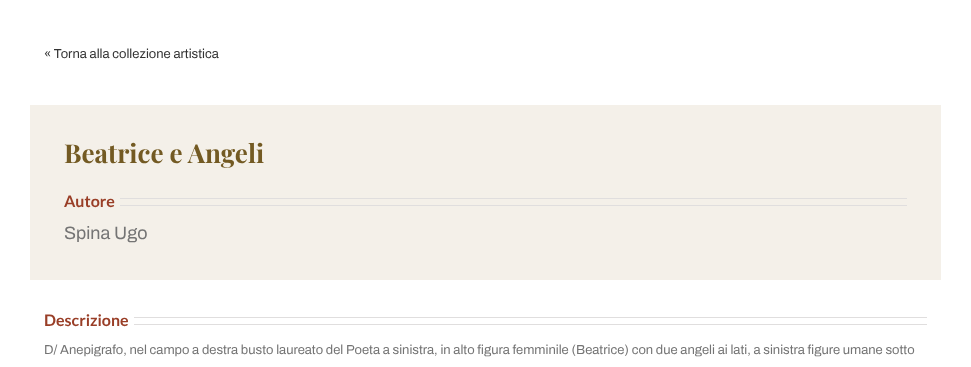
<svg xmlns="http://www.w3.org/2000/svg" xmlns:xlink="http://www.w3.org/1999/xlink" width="971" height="367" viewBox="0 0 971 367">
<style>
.cls-1{font:13px Archivo;fill:#333333}
.cls-2{font:bold 26px Playfair Display;fill:#735a23}
.cls-3{font:bold 16px Lato;fill:#993e27}
.cls-4{font:18px Archivo;fill:#747474}
.cls-5{font:13px Archivo;fill:#747474}
</style>
<rect width="100%" height="100%" fill="#ffffff"/>
<rect fill="#f4f0e9" x="30" y="105" width="911" height="175"/>
<rect fill="#e0dede" x="120" y="198" width="787" height="1"/>
<rect fill="#e0dede" x="120" y="205" width="787" height="1"/>
<rect fill="#e0dede" x="134" y="317" width="793" height="1"/>
<rect fill="#e0dede" x="134" y="324" width="793" height="1"/>
<text class="cls-1" x="44" y="58">« Torna alla collezione artistica</text>
<text class="cls-2" x="64" y="163">Beatrice e Angeli</text>
<text class="cls-3" x="64" y="207">Autore</text>
<text class="cls-4" x="64" y="239">Spina Ugo</text>
<text class="cls-3" x="44" y="326">Descrizione</text>
<text class="cls-5" x="44" y="354">D/ Anepigrafo, nel campo a destra busto laureato del Poeta a sinistra, in alto figura femminile (Beatrice) con due angeli ai lati, a sinistra figure umane sotto</text>
</svg>
